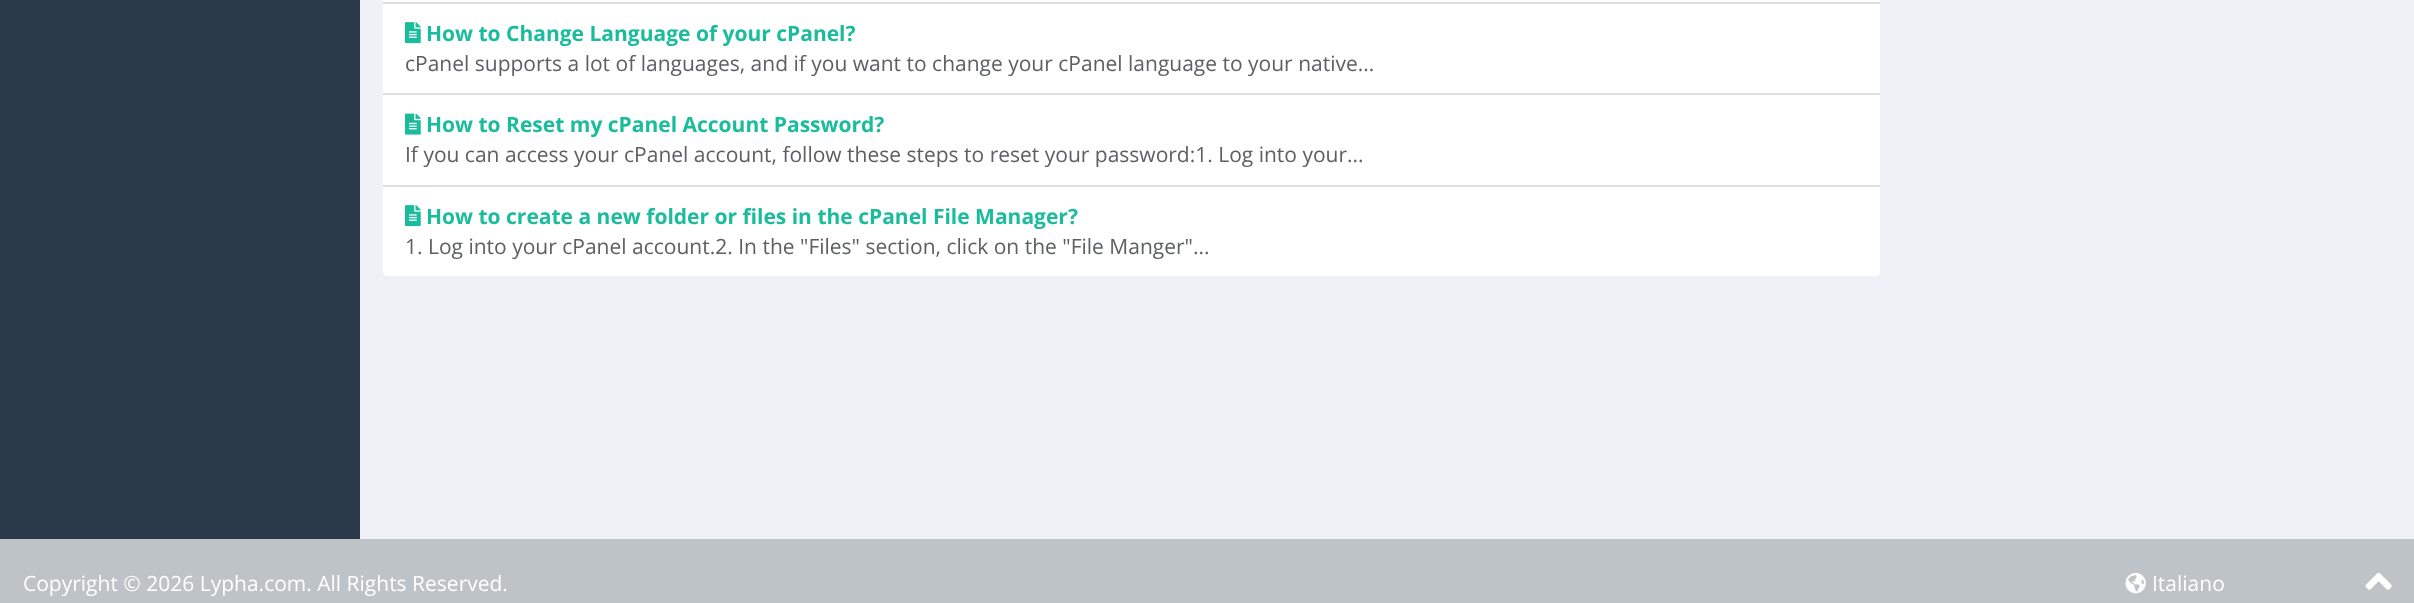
<svg xmlns="http://www.w3.org/2000/svg" xmlns:xlink="http://www.w3.org/1999/xlink" width="2414" height="603" viewBox="0 0 2414 603">
<style>
.cls-1{font:bold 21px Open Sans;fill:#1abc9c}
.cls-2{font:21px Open Sans;fill:#5d5f63}
.cls-3{font:21px Open Sans;fill:#ffffff}
</style>
<rect width="100%" height="100%" fill="#f0f1f6"/>
<rect fill="#293949" x="0" y="0" width="360" height="539"/>
<rect fill="#ffffff" x="383" y="-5" width="1497" height="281" rx="5"/>
<rect fill="#dddddd" x="383" y="2" width="1497" height="2"/>
<rect fill="#dddddd" x="383" y="93" width="1497" height="2"/>
<image xlink:href="image0.png" x="405" y="22" width="16" height="22"/>
<image xlink:href="image1.png" x="405" y="113" width="16" height="22"/>
<path fill="#ffffff" d="M383 185H1880V271C1880 274 1878 276 1875 276H388C385 276 383 274 383 271Z"/>
<rect fill="#dddddd" x="383" y="185" width="1497" height="2"/>
<image xlink:href="image0.png" x="405" y="205" width="16" height="22"/>
<rect fill="#bdc3c7" x="0" y="539" width="2414" height="64"/>
<image xlink:href="image2.png" x="2125" y="573" width="21" height="21"/>
<image xlink:href="image3.png" x="2365" y="572" width="27" height="18"/>
<text class="cls-1" x="426" y="41">How to Change Language of your cPanel?</text>
<text class="cls-2" x="405" y="71">cPanel supports a lot of languages, and if you want to change your cPanel language to your native...</text>
<text class="cls-1" x="426" y="132">How to Reset my cPanel Account Password?</text>
<text class="cls-2" x="405" y="162">If you can access your cPanel account, follow these steps to reset your password:1. Log into your...</text>
<text class="cls-1" x="426" y="224">How to create a new folder or files in the cPanel File Manager?</text>
<text class="cls-2" x="405" y="254">1. Log into your cPanel account.2. In the "Files" section, click on the "File Manger"...</text>
<text class="cls-3" x="23" y="591">Copyright © 2026 Lypha.com. All Rights Reserved.</text>
<text class="cls-3" x="2152" y="591">Italiano</text>
</svg>
